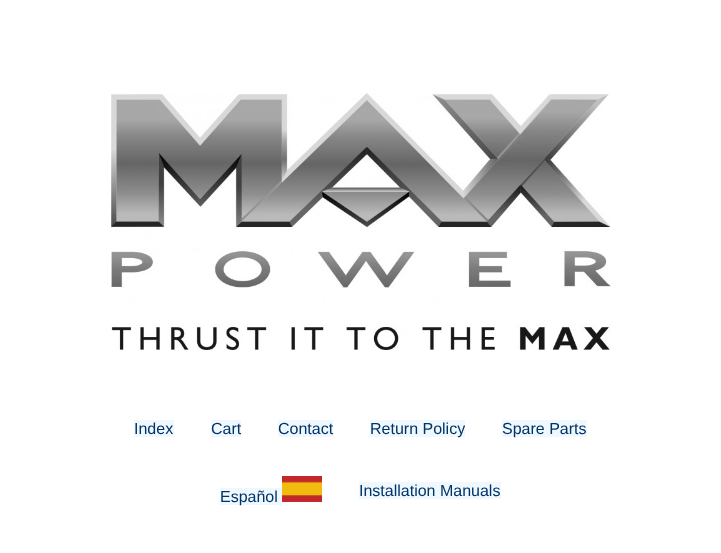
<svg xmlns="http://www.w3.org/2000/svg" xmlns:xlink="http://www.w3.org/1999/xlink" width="721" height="553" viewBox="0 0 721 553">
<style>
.cls-1{font:16px Liberation Sans;fill:#003366}
</style>
<rect width="100%" height="100%" fill="#ffffff"/>
<image xlink:href="image0.png" x="111" y="93" width="500" height="257"/>
<rect fill="#f0f8ff" x="134" y="420" width="40" height="17"/>
<rect fill="#f0f8ff" x="211" y="420" width="30" height="17"/>
<rect fill="#f0f8ff" x="278" y="420" width="55" height="17"/>
<rect fill="#f0f8ff" x="370" y="420" width="95" height="17"/>
<rect fill="#f0f8ff" x="502" y="420" width="85" height="17"/>
<rect fill="#f0f8ff" x="220" y="488" width="62" height="17"/>
<image xlink:href="image1.png" x="282" y="476" width="40" height="26"/>
<rect fill="#f0f8ff" x="359" y="482" width="142" height="17"/>
<text class="cls-1" x="134" y="434">Index</text>
<text class="cls-1" x="211" y="434">Cart</text>
<text class="cls-1" x="278" y="434">Contact</text>
<text class="cls-1" x="370" y="434">Return Policy</text>
<text class="cls-1" x="502" y="434">Spare Parts</text>
<text class="cls-1" x="220" y="502">Español</text>
<text class="cls-1" x="359" y="496">Installation Manuals</text>
</svg>
